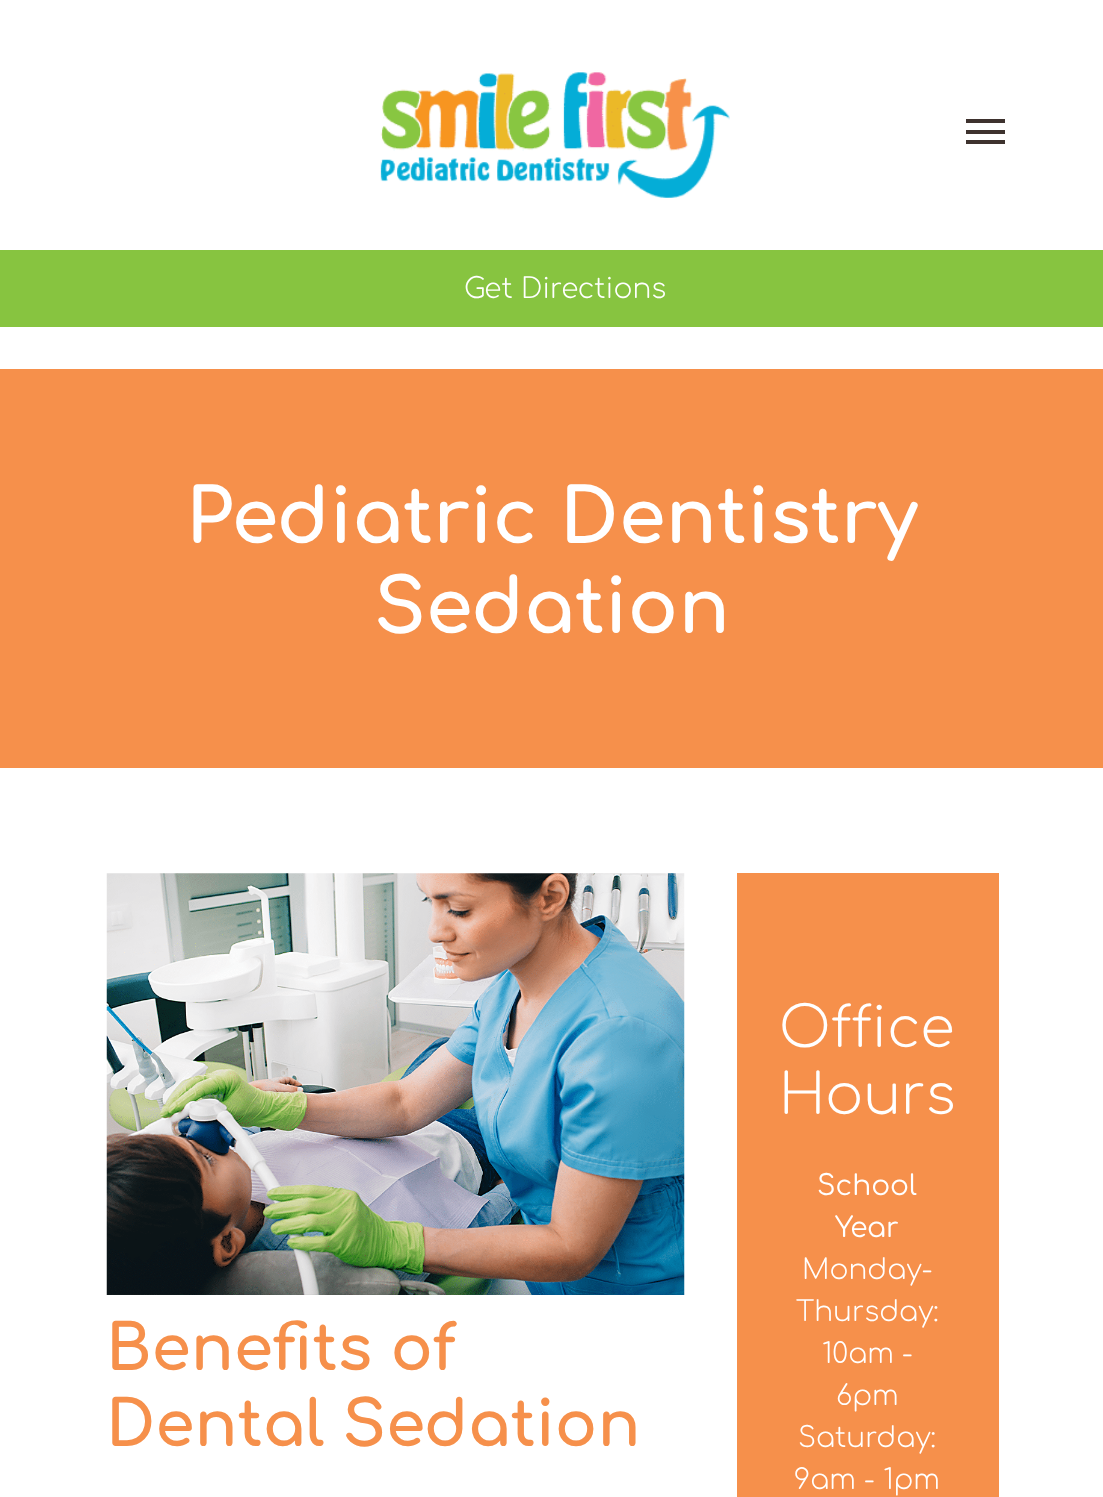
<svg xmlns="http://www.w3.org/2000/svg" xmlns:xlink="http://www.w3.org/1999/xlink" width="1103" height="1497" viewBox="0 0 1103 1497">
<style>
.cls-1{font:300 28px Comfortaa;fill:#ffffff}
.cls-2{font:bold 75.25px Comfortaa;fill:#ffffff}
.cls-3{font:bold 63px Comfortaa;fill:#f6904b}
.cls-4{font:300 56px Comfortaa;fill:#ffffff}
.cls-5{font:28px Comfortaa;fill:#ffffff}
</style>
<rect width="100%" height="100%" fill="#ffffff"/>
<image xlink:href="image0.png" x="380" y="70" width="350" height="128"/>
<rect fill="#3e322e" x="966" y="119" width="39" height="4"/>
<rect fill="#3e322e" x="966" y="130" width="39" height="4"/>
<rect fill="#3e322e" x="966" y="140" width="39" height="4"/>
<rect fill="#87c440" x="0" y="250" width="1103" height="77"/>
<rect fill="#f6904b" x="0" y="369" width="1103" height="399"/>
<image xlink:href="image1.png" x="106" y="873" width="579" height="422"/>
<rect fill="#f6904b" x="737" y="873" width="262" height="624"/>
<text class="cls-1" x="464" y="298">Get Directions</text>
<text class="cls-2" x="186" y="543">Pediatric Dentistry</text>
<text class="cls-2" x="374" y="633">Sedation</text>
<text class="cls-3"><tspan x="106" y="1370">Benefits of</tspan><tspan x="106" y="1446">Dental Sedation</tspan></text>
<text class="cls-4"><tspan x="779" y="1047">Office</tspan><tspan x="779" y="1114">Hours</tspan></text>
<text class="cls-5" x="817" y="1195">School</text>
<text class="cls-5" x="835" y="1237">Year</text>
<text class="cls-1" x="802" y="1279">Monday-</text>
<text class="cls-1" x="796" y="1321">Thursday:</text>
<text class="cls-1" x="822" y="1363">10am -</text>
<text class="cls-1" x="836" y="1405">6pm</text>
<text class="cls-1" x="798" y="1447">Saturday:</text>
<text class="cls-1" x="794" y="1489">9am - 1pm</text>
</svg>
